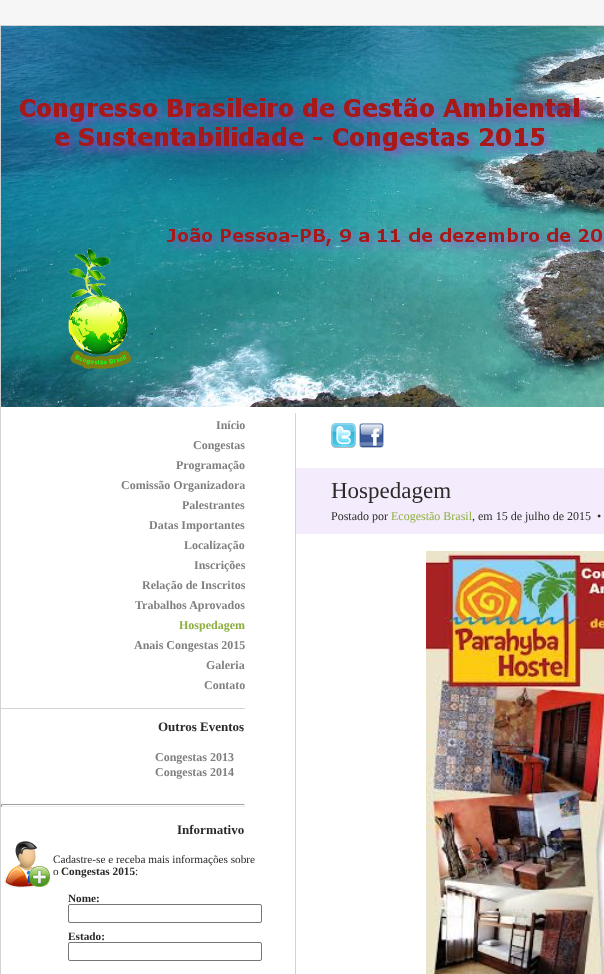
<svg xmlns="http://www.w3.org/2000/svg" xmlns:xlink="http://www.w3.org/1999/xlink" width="604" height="974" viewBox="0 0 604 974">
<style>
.cls-1{font:bold 12px Liberation Serif;fill:#808080}
.cls-2{font:bold 12px Liberation Serif;fill:#8daf3f}
.cls-3{font:bold 13px Liberation Serif;fill:#2b2a29}
.cls-4{font:11.25px Liberation Serif;fill:#2b2a29}
.cls-5{font:bold 11.25px Liberation Serif;fill:#2b2a29}
.cls-6{font:23px Liberation Serif;fill:#2b2a29}
.cls-7{font:12px Liberation Serif;fill:#2b2a29}
.cls-8{font:12px Liberation Serif;fill:#8daf3f}
</style>
<rect width="100%" height="100%" fill="#f7f6f6"/>
<rect fill="#ffffff" x="1" y="407" width="603" height="567"/>
<rect fill="none" stroke="#d1d3d4" x="0.5" y="25.5" width="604" height="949"/>
<image xlink:href="image0.png" x="1" y="26" width="603" height="381"/>
<rect fill="#d1d3d4" x="295" y="413" width="1" height="561"/>
<rect fill="#d1d3d4" x="1" y="708" width="244" height="1"/>
<rect fill="#9f9f9f" x="1" y="804" width="244" height="1"/>
<rect fill="#eeeeee" x="244" y="804" width="1" height="3"/>
<rect fill="#eeeeee" x="1" y="806" width="244" height="1"/>
<rect fill="#9f9f9f" x="1" y="804" width="1" height="3"/>
<image xlink:href="image1.png" x="4" y="841" width="46" height="47"/>
<rect fill="none" stroke="#767676" x="68.5" y="904.5" width="193" height="18" rx="1.5"/>
<rect fill="none" stroke="#767676" x="68.5" y="942.5" width="193" height="18" rx="1.5"/>
<image xlink:href="image2.png" x="331" y="423" width="25" height="25"/>
<image xlink:href="image3.png" x="359" y="423" width="25" height="25"/>
<rect fill="#f4ecfc" x="296" y="468" width="308" height="66"/>
<image xlink:href="image4.png" x="426" y="551" width="178" height="423"/>
<text class="cls-1" x="216" y="429">Início</text>
<text class="cls-1" x="193" y="449">Congestas</text>
<text class="cls-1" x="176" y="469">Programação</text>
<text class="cls-1" x="121" y="489">Comissão Organizadora</text>
<text class="cls-1" x="182" y="509">Palestrantes</text>
<text class="cls-1" x="149" y="529">Datas Importantes</text>
<text class="cls-1" x="184" y="549">Localização</text>
<text class="cls-1" x="194" y="569">Inscrições</text>
<text class="cls-1" x="142" y="589">Relação de Inscritos</text>
<text class="cls-1" x="135" y="609">Trabalhos Aprovados</text>
<text class="cls-2" x="179" y="629">Hospedagem</text>
<text class="cls-1" x="134" y="649">Anais Congestas 2015</text>
<text class="cls-1" x="206" y="669">Galeria</text>
<text class="cls-1" x="204" y="689">Contato</text>
<text class="cls-3" x="158" y="731">Outros Eventos</text>
<text class="cls-1"><tspan x="155" y="761">Congestas 2013</tspan><tspan x="155" y="776">Congestas 2014</tspan></text>
<text class="cls-3" x="177" y="834">Informativo</text>
<text class="cls-4"><tspan x="53" y="863">Cadastre-se e receba mais informações sobre</tspan><tspan x="53" y="875">o</tspan></text>
<text class="cls-5" x="61" y="875">Congestas 2015</text>
<text class="cls-4" x="135" y="875">:</text>
<text class="cls-5" x="68" y="902">Nome:</text>
<text class="cls-5" x="68" y="940">Estado:</text>
<text class="cls-6" x="331" y="498">Hospedagem</text>
<text class="cls-7" x="331" y="520">Postado por</text>
<text class="cls-8" x="391" y="520">Ecogestão Brasil</text>
<text class="cls-7" xml:space="preserve" x="472" y="520">, em 15 de julho de 2015  •</text>
</svg>
